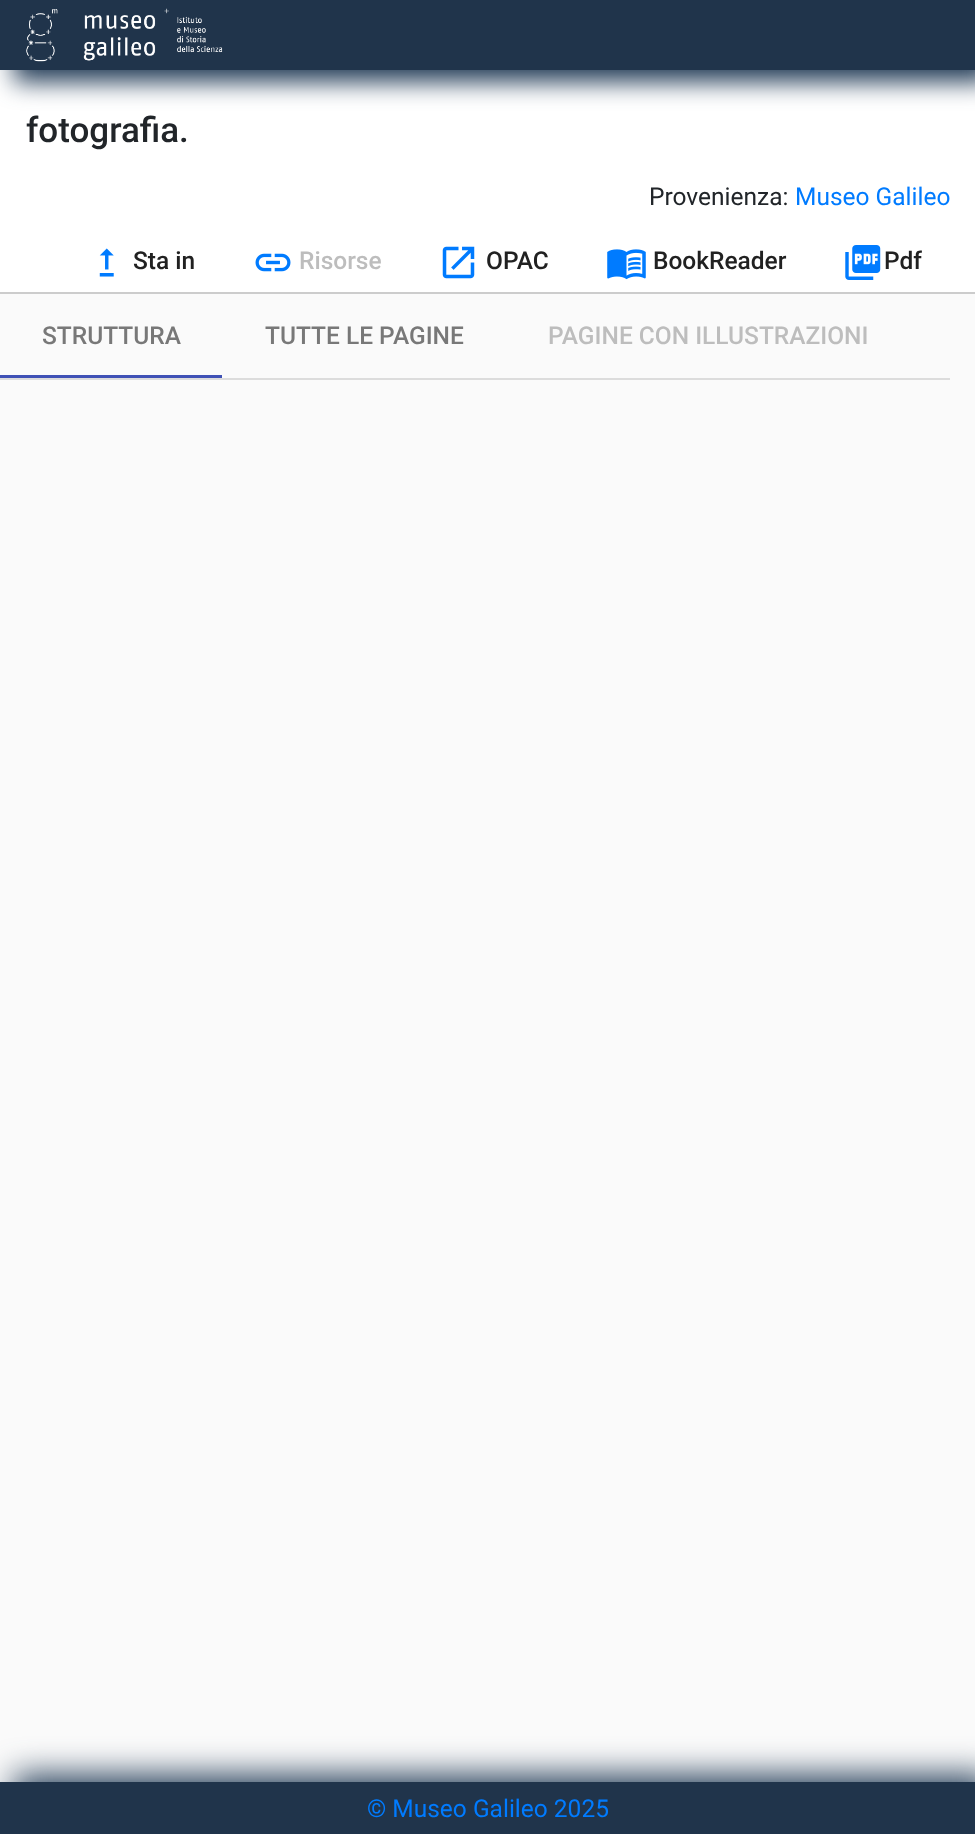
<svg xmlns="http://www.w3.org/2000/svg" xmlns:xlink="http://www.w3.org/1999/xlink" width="975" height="1834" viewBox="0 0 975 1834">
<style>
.cls-1{font:500 35px Roboto;fill:#212529}
.cls-2{font:24.5px Roboto;fill:#212529}
.cls-3{font:24.5px Roboto;fill:#007bff}
.cls-4{font:500 24.5px Roboto;fill:#212121}
.cls-5{font:500 24.5px Roboto;fill:#bdbdbd}
.cls-6{font:500 24.5px Roboto;fill:#787878}
</style>
<rect width="100%" height="100%" fill="#ffffff"/>
<rect fill="#253e59" filter="blur(12px)" x="14" y="12" width="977" height="70"/>
<rect fill="#20344b" x="0" y="0" width="975" height="70"/>
<image xlink:href="image0.png" x="26" y="8" width="197" height="54"/>
<rect fill="#cccccc" x="0" y="292" width="975" height="2"/>
<image xlink:href="image1.png" x="99" y="248" width="15" height="29"/>
<image xlink:href="image2.png" x="255" y="253" width="36" height="19"/>
<image xlink:href="image3.png" x="442" y="246" width="33" height="33"/>
<image xlink:href="image4.png" x="607" y="249" width="39" height="31"/>
<image xlink:href="image5.png" x="845" y="245" width="36" height="35"/>
<rect fill="#fafafa" x="0" y="294" width="975" height="1488"/>
<rect fill="#dcdcdc" x="0" y="378" width="950" height="2"/>
<rect fill="#3f51b5" x="0" y="375" width="222" height="3"/>
<rect fill="#253e59" filter="blur(16.5px)" x="14" y="1775" width="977" height="52"/>
<rect fill="#20344b" x="0" y="1782" width="975" height="52"/>
<text class="cls-1" x="26" y="142">fotografia.</text>
<text class="cls-2" x="649" y="205">Provenienza:</text>
<text class="cls-3" x="795" y="205">Museo Galileo</text>
<text class="cls-4" x="133" y="269">Sta in</text>
<text class="cls-5" x="299" y="269">Risorse</text>
<text class="cls-4" x="486" y="269">OPAC</text>
<text class="cls-4" x="653" y="269">BookReader</text>
<text class="cls-4" x="884" y="269">Pdf</text>
<text class="cls-6" x="42" y="344">STRUTTURA</text>
<text class="cls-6" x="265" y="344">TUTTE LE PAGINE</text>
<text class="cls-5" x="548" y="344">PAGINE CON ILLUSTRAZIONI</text>
<text class="cls-3" x="367" y="1817">© Museo Galileo 2025</text>
</svg>
